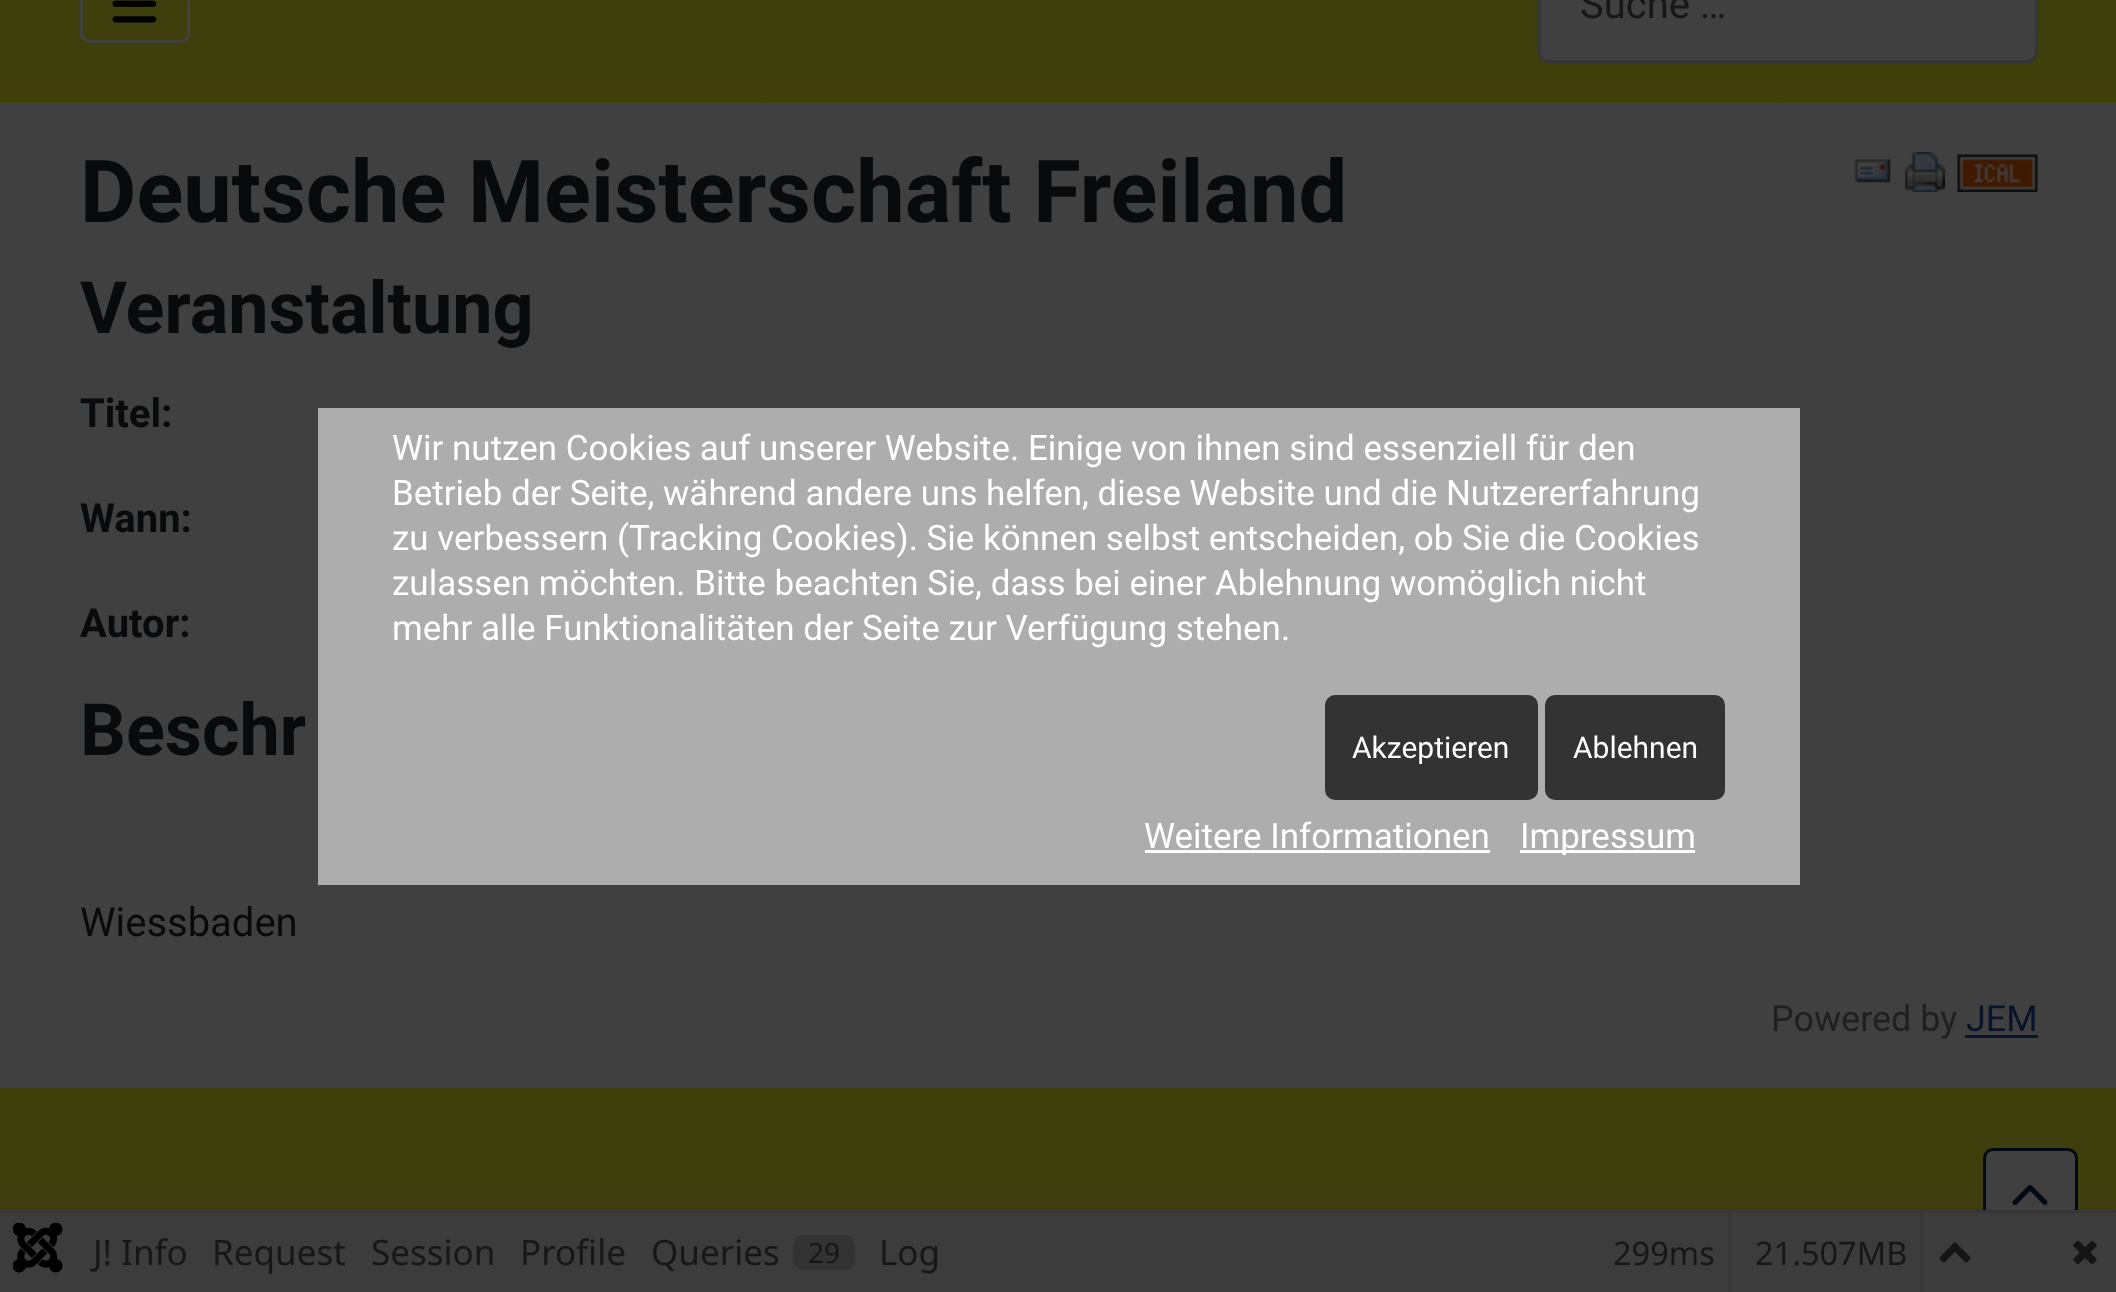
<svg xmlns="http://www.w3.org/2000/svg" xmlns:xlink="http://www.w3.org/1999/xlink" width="2116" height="1292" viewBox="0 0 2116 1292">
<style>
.cls-1{font:40px Roboto;fill:#161718}
.cls-2{font:bold 86.75px Roboto;fill:#090a0b}
.cls-3{font:bold 72px Roboto;fill:#090a0b}
.cls-4{font:bold 40px Roboto;fill:#090a0b}
.cls-5{font:40px Roboto;fill:#090a0b}
.cls-6{font:36px Roboto;fill:#202020}
.cls-7{font:36px Roboto;fill:#09142b}
.cls-8{font:35px Roboto;fill:#ffffff}
.cls-9{font:30px Roboto;fill:#ffffff}
.cls-10{font:35px Noto Sans;fill:#161718}
.cls-11{font:28px Noto Sans;fill:#161718}
.cls-12{font:32.5px Noto Sans;fill:#161718}
</style>
<defs>
<linearGradient id="g1" gradientUnits="userSpaceOnUse" x1="1059" y1="-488" x2="1059" y2="103"><stop offset="0" stop-color="#3c3715"/><stop offset="1" stop-color="#3f3f0b"/></linearGradient>
<linearGradient id="g2" gradientUnits="userSpaceOnUse" x1="1059" y1="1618" x2="1059" y2="1088"><stop offset="0" stop-color="#3c3715"/><stop offset="1" stop-color="#3f3f0b"/></linearGradient>
</defs>
<rect width="100%" height="100%" fill="#404040"/>
<rect fill="url(#g1)" x="0" y="0" width="2116" height="103"/>
<rect fill="none" stroke="#404040" stroke-width="3" x="81.5" y="-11.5" width="107" height="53" rx="8.5"/>
<image xlink:href="image0.png" x="112" y="0" width="45" height="23"/>
<rect fill="#404040" x="1540" y="-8" width="495" height="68" rx="8"/>
<rect fill="none" stroke="#343537" stroke-width="3" x="1539.5" y="-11.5" width="497" height="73" rx="8.5"/>
<image xlink:href="image1.png" x="1854" y="158" width="37" height="25"/>
<image xlink:href="image2.png" x="1905" y="152" width="40" height="40"/>
<image xlink:href="image3.png" x="1957" y="154" width="81" height="38"/>
<rect fill="#09142b" x="1965" y="1035" width="73" height="3"/>
<rect fill="#adadad" x="318" y="408" width="1482" height="477"/>
<rect fill="#333333" x="1325" y="695" width="213" height="105" rx="10"/>
<rect fill="#333333" x="1545" y="695" width="180" height="105" rx="10"/>
<rect fill="#ffffff" x="1145" y="850" width="345" height="3"/>
<rect fill="#ffffff" x="1520" y="850" width="175" height="3"/>
<rect fill="url(#g2)" x="0" y="1088" width="2116" height="122"/>
<rect fill="#404040" stroke="#040a15" stroke-width="3" x="1984.5" y="1149.5" width="92" height="102" rx="8.5"/>
<rect fill="#373737" x="0" y="1210" width="2116" height="3"/>
<rect fill="#3c3c3c" x="0" y="1213" width="2116" height="79"/>
<image xlink:href="image4.png" x="13" y="1223" width="50" height="50"/>
<rect fill="#333333" x="793" y="1235" width="62" height="35" rx="10"/>
<rect fill="#373737" x="1728" y="1213" width="3" height="79"/>
<rect fill="#373737" x="1920" y="1213" width="3" height="79"/>
<image xlink:href="image5.png" x="1939" y="1242" width="32" height="21"/>
<image xlink:href="image6.png" x="2073" y="1240" width="24" height="25"/>
<image xlink:href="image7.png" x="2012" y="1185" width="36" height="20"/>
<text class="cls-1" x="1580" y="18">Suche …</text>
<text class="cls-2" x="80" y="222">Deutsche Meisterschaft Freiland</text>
<text class="cls-3" x="80" y="333">Veranstaltung</text>
<text class="cls-4" x="80" y="427">Titel:</text>
<text class="cls-4" x="80" y="532">Wann:</text>
<text class="cls-4" x="80" y="637">Autor:</text>
<text class="cls-3" x="80" y="755">Beschr</text>
<text class="cls-5" x="80" y="936">Wiessbaden</text>
<text class="cls-6" x="1771" y="1031">Powered by</text>
<text class="cls-7" x="1966" y="1031">JEM</text>
<text class="cls-8"><tspan x="392" y="460">Wir nutzen Cookies auf unserer Website. Einige von ihnen sind essenziell für den</tspan><tspan x="392" y="505">Betrieb der Seite, während andere uns helfen, diese Website und die Nutzererfahrung</tspan><tspan x="392" y="550">zu verbessern (Tracking Cookies). Sie können selbst entscheiden, ob Sie die Cookies</tspan><tspan x="392" y="595">zulassen möchten. Bitte beachten Sie, dass bei einer Ablehnung womöglich nicht</tspan><tspan x="392" y="640">mehr alle Funktionalitäten der Seite zur Verfügung stehen.</tspan></text>
<text class="cls-9" x="1352" y="758">Akzeptieren</text>
<text class="cls-9" x="1573" y="758">Ablehnen</text>
<text class="cls-8" x="1144" y="848">Weitere Informationen</text>
<text class="cls-8" x="1520" y="848">Impressum</text>
<text class="cls-10" x="93" y="1265">J! Info</text>
<text class="cls-10" x="212" y="1265">Request</text>
<text class="cls-10" x="371" y="1265">Session</text>
<text class="cls-10" x="520" y="1265">Profile</text>
<text class="cls-10" x="651" y="1265">Queries</text>
<text class="cls-11" x="808" y="1263">29</text>
<text class="cls-10" x="879" y="1265">Log</text>
<text class="cls-12" x="1613" y="1265">299ms</text>
<text class="cls-12" x="1755" y="1265">21.507MB</text>
</svg>
